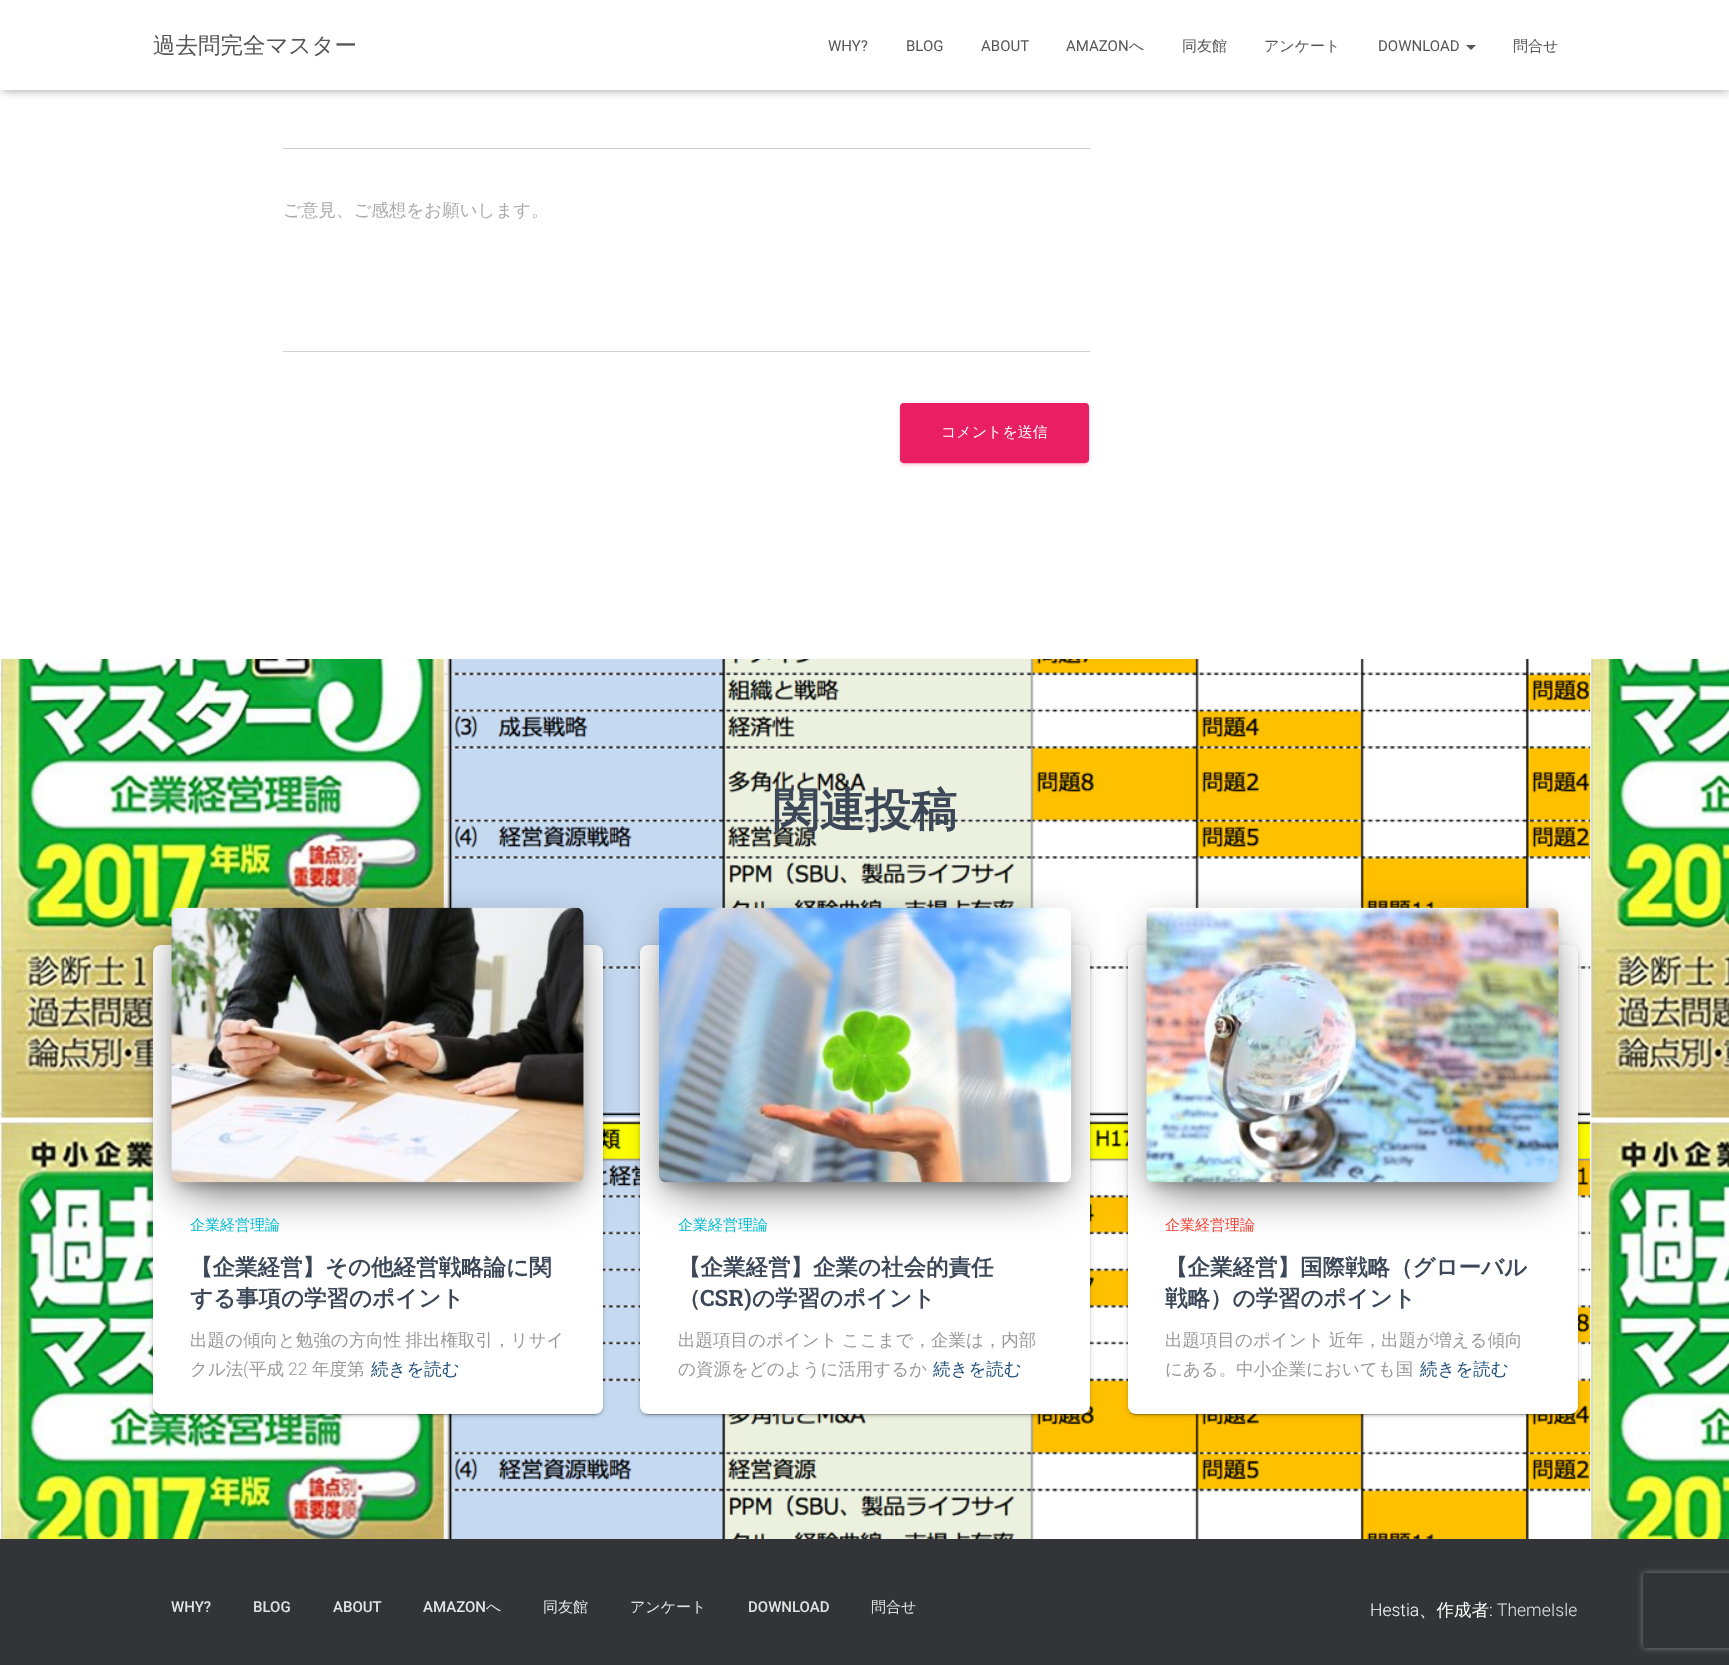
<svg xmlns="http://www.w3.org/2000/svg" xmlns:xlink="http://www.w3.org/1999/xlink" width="1729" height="1665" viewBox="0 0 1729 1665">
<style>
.cls-1{font:500 22.5px WenQuanYi Zen Hei;fill:#555555}
.cls-2{font:15px Roboto;fill:#555555}
.cls-3{font:500 15px WenQuanYi Zen Hei;fill:#555555}
.cls-4{font:500 17.5px WenQuanYi Zen Hei;fill:#aaaaaa}
.cls-5{font:500 15px WenQuanYi Zen Hei;fill:#ffffff}
.cls-6{font:bold 46px WenQuanYi Zen Hei;fill:#3c4858}
.cls-7{font:500 15px WenQuanYi Zen Hei;fill:#00bcd4}
.cls-8{font:bold 22.5px WenQuanYi Zen Hei;fill:#3c4858}
.cls-9{font:500 17.5px WenQuanYi Zen Hei;fill:#999999}
.cls-10{font:300 17.5px Roboto;fill:#999999}
.cls-11{font:500 17.5px WenQuanYi Zen Hei;fill:#23527c}
.cls-12{font:bold 22.5px Roboto Slab;fill:#3c4858}
.cls-13{font:500 15px WenQuanYi Zen Hei;fill:#f44336}
.cls-14{font:500 15px Roboto;fill:#e2e3e3}
.cls-15{font:500 15px WenQuanYi Zen Hei;fill:#e2e3e3}
.cls-16{font:300 17.5px Roboto;fill:#ffffff}
.cls-17{font:500 17.5px WenQuanYi Zen Hei;fill:#ffffff}
.cls-18{font:300 17.5px Roboto;fill:#e2e3e3}
</style>
<defs>
<clipPath id="clip1"><path d="M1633 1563H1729V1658H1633ZM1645.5 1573H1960.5C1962 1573 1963 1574 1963 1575.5V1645.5C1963 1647 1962 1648 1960.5 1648H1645.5C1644 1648 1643 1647 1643 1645.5V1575.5C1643 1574 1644 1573 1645.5 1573Z" clip-rule="evenodd"/></clipPath>
</defs>
<rect width="100%" height="100%" fill="#ffffff"/>
<image xlink:href="image0.png" x="0" y="659" width="1729" height="880"/>
<rect fill="#000000" fill-opacity="0.1" filter="blur(3px)" x="3" y="8" width="1725" height="85"/>
<rect fill="#000000" fill-opacity="0.12" filter="blur(6px)" x="0" y="1" width="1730" height="90"/>
<rect fill="#000000" fill-opacity="0.42" filter="blur(6px)" x="8" y="9" width="1715" height="75"/>
<rect fill="#ffffff" x="0" y="0" width="1729" height="90"/>
<path fill="#555555" d="M1466 45H1476L1471 50Z"/>
<rect fill="#d2d2d2" x="283" y="148" width="807" height="1"/>
<rect fill="#d2d2d2" x="283" y="351" width="807" height="1"/>
<rect fill="#e91e63" fill-opacity="0.12" filter="blur(3px)" x="900" y="404" width="189" height="60" rx="4"/>
<rect fill="#e91e63" fill-opacity="0.2" filter="blur(0.5px)" x="903" y="409" width="183" height="55" rx="1"/>
<rect fill="#e91e63" fill-opacity="0.14" filter="blur(1px)" x="900" y="405" width="189" height="60" rx="4"/>
<rect fill="#e91e63" x="900" y="403" width="189" height="60" rx="4"/>
<rect fill="#000000" fill-opacity="0.12" filter="blur(3px)" x="153" y="946" width="450" height="469" rx="8"/>
<rect fill="#000000" fill-opacity="0.2" filter="blur(0.5px)" x="155" y="951" width="445" height="464" rx="5"/>
<rect fill="#000000" fill-opacity="0.14" filter="blur(1px)" x="153" y="948" width="450" height="468" rx="8"/>
<rect fill="#ffffff" x="153" y="945" width="450" height="469" rx="8"/>
<rect fill="#000000" fill-opacity="0.2" filter="blur(6px)" x="178" y="924" width="400" height="262" rx="1"/>
<rect fill="#000000" fill-opacity="0.12" filter="blur(15.5px)" x="171" y="913" width="413" height="275" rx="8"/>
<rect fill="#000000" fill-opacity="0.56" filter="blur(24px)" x="186" y="943" width="383" height="245"/>
<image xlink:href="image1.png" x="171" y="907" width="413" height="276"/>
<rect fill="#000000" fill-opacity="0.12" filter="blur(3px)" x="640" y="946" width="450" height="469" rx="8"/>
<rect fill="#000000" fill-opacity="0.2" filter="blur(0.5px)" x="643" y="951" width="445" height="464" rx="5"/>
<rect fill="#000000" fill-opacity="0.14" filter="blur(1px)" x="640" y="948" width="450" height="468" rx="8"/>
<rect fill="#ffffff" x="640" y="945" width="450" height="469" rx="8"/>
<rect fill="#000000" fill-opacity="0.2" filter="blur(6px)" x="665" y="924" width="400" height="262" rx="1"/>
<rect fill="#000000" fill-opacity="0.12" filter="blur(15.5px)" x="659" y="913" width="412" height="275" rx="8"/>
<rect fill="#000000" fill-opacity="0.56" filter="blur(24px)" x="674" y="943" width="382" height="245"/>
<image xlink:href="image2.png" x="659" y="907" width="412" height="276"/>
<rect fill="#000000" fill-opacity="0.12" filter="blur(3px)" x="1128" y="946" width="450" height="469" rx="8"/>
<rect fill="#000000" fill-opacity="0.2" filter="blur(0.5px)" x="1130" y="951" width="445" height="464" rx="5"/>
<rect fill="#000000" fill-opacity="0.14" filter="blur(1px)" x="1128" y="948" width="450" height="468" rx="8"/>
<rect fill="#ffffff" x="1128" y="945" width="450" height="469" rx="8"/>
<rect fill="#000000" fill-opacity="0.2" filter="blur(6px)" x="1153" y="924" width="400" height="262" rx="1"/>
<rect fill="#000000" fill-opacity="0.12" filter="blur(15.5px)" x="1146" y="913" width="413" height="275" rx="8"/>
<rect fill="#000000" fill-opacity="0.56" filter="blur(24px)" x="1161" y="943" width="383" height="245"/>
<image xlink:href="image3.png" x="1146" y="907" width="413" height="276"/>
<rect fill="#323437" x="0" y="1539" width="1729" height="126"/>
<g clip-path="url(#clip1)">
<rect fill="#808080" filter="blur(3px)" x="1643" y="1573" width="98" height="75" rx="2.5"/>
</g>
<text class="cls-1" x="153" y="53">過去問完全マスター</text>
<text class="cls-2" x="828" y="51">WHY?</text>
<text class="cls-2" x="906" y="51">BLOG</text>
<text class="cls-2" x="981" y="51">ABOUT</text>
<text class="cls-2" x="1066" y="51">AMAZON</text>
<text class="cls-3" x="1129" y="51">へ</text>
<text class="cls-3" x="1182" y="51">同友館</text>
<text class="cls-3" x="1264" y="51">アンケート</text>
<text class="cls-2" x="1378" y="51">DOWNLOAD</text>
<text class="cls-3" x="1513" y="51">問合せ</text>
<text class="cls-4" x="283" y="216">ご意見、ご感想をお願いします。</text>
<text class="cls-5" x="941" y="437">コメントを送信</text>
<text class="cls-6" x="773" y="826">関連投稿</text>
<text class="cls-7" x="190" y="1230">企業経営理論</text>
<text class="cls-8"><tspan x="190" y="1275">【企業経営】その他経営戦略論に関</tspan><tspan x="190" y="1306">する事項の学習のポイント</tspan></text>
<text class="cls-9"><tspan x="190" y="1346" word-spacing="-1">出題の傾向と勉強の方向性 排出権取引，リサイ</tspan><tspan x="190" y="1375">クル法</tspan></text>
<text class="cls-10" x="243" y="1375">(</text>
<text class="cls-9" x="249" y="1375">平成</text>
<text class="cls-10" x="288" y="1375">22</text>
<text class="cls-9" x="312" y="1375">年度第</text>
<text class="cls-11" x="371" y="1375">続きを読む</text>
<text class="cls-7" x="678" y="1230">企業経営理論</text>
<text class="cls-8"><tspan x="678" y="1275">【企業経営】企業の社会的責任</tspan><tspan x="678" y="1306">（</tspan></text>
<text class="cls-12" x="700" y="1306">CSR)</text>
<text class="cls-8" x="752" y="1306">の学習のポイント</text>
<text class="cls-9"><tspan x="678" y="1346" word-spacing="-1">出題項目のポイント ここまで，企業は，内部</tspan><tspan x="678" y="1375">の資源をどのように活用するか</tspan></text>
<text class="cls-11" x="933" y="1375">続きを読む</text>
<text class="cls-13" x="1165" y="1230">企業経営理論</text>
<text class="cls-8"><tspan x="1165" y="1275">【企業経営】国際戦略（グローバル</tspan><tspan x="1165" y="1306">戦略）の学習のポイント</tspan></text>
<text class="cls-9"><tspan x="1165" y="1346" word-spacing="-1">出題項目のポイント 近年，出題が増える傾向</tspan><tspan x="1165" y="1375">にある。中小企業においても国</tspan></text>
<text class="cls-11" x="1420" y="1375">続きを読む</text>
<text class="cls-14" x="171" y="1612">WHY?</text>
<text class="cls-14" x="253" y="1612">BLOG</text>
<text class="cls-14" x="333" y="1612">ABOUT</text>
<text class="cls-14" x="423" y="1612">AMAZON</text>
<text class="cls-15" x="486" y="1612">へ</text>
<text class="cls-15" x="543" y="1612">同友館</text>
<text class="cls-15" x="630" y="1612">アンケート</text>
<text class="cls-14" x="748" y="1612">DOWNLOAD</text>
<text class="cls-15" x="871" y="1612">問合せ</text>
<text class="cls-16" x="1370" y="1616">Hestia</text>
<text class="cls-17" x="1419" y="1616">、作成者</text>
<text class="cls-16" x="1489" y="1616">:</text>
<text class="cls-18" x="1497" y="1616">ThemeIsle</text>
</svg>
